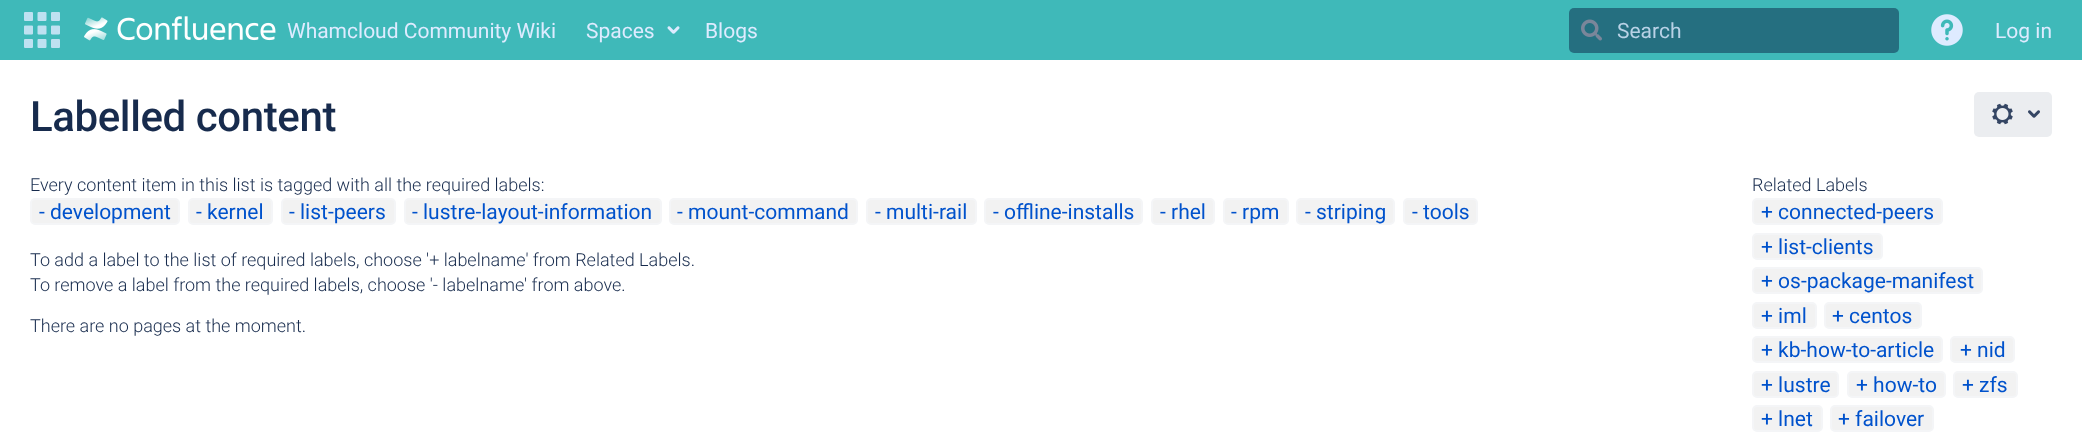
<svg xmlns="http://www.w3.org/2000/svg" xmlns:xlink="http://www.w3.org/1999/xlink" width="2082" height="435" viewBox="0 0 2082 435">
<style>
.cls-1{font:21px Roboto;fill:#deebff}
.cls-2{font:21px Roboto;fill:#b9d2e6}
.cls-3{font:500 42px Roboto;letter-spacing:-0.4px;fill:#172b4d}
.cls-4{font:300 18px Roboto;fill:#172b4d}
.cls-5{font:21px Roboto;fill:#0052cc}
</style>
<rect width="100%" height="100%" fill="#3fb9b9"/>
<image xlink:href="image0.png" x="24" y="12" width="36" height="36"/>
<image xlink:href="image1.png" x="84" y="16" width="192" height="25"/>
<image xlink:href="image2.png" x="667" y="26" width="13" height="8"/>
<rect fill="#256f80" x="1569" y="8" width="330" height="45" rx="5"/>
<image xlink:href="image3.png" x="1581" y="19" width="21" height="22"/>
<image xlink:href="image4.png" x="1931" y="14" width="32" height="32"/>
<rect fill="#ffffff" x="0" y="60" width="2082" height="375"/>
<rect fill="#ebedf0" x="1974" y="92" width="78" height="45" rx="5"/>
<image xlink:href="image5.png" x="1992" y="103" width="21" height="22"/>
<image xlink:href="image6.png" x="2028" y="110" width="12" height="8"/>
<rect fill="#f2f2f2" stroke="#f4f5f7" stroke-width="2" x="31" y="199" width="148" height="25" rx="4"/>
<rect fill="#f2f2f2" stroke="#f4f5f7" stroke-width="2" x="189" y="199" width="83" height="25" rx="4"/>
<rect fill="#f2f2f2" stroke="#f4f5f7" stroke-width="2" x="282" y="199" width="113" height="25" rx="4"/>
<rect fill="#f2f2f2" stroke="#f4f5f7" stroke-width="2" x="405" y="199" width="256" height="25" rx="4"/>
<rect fill="#f2f2f2" stroke="#f4f5f7" stroke-width="2" x="670" y="199" width="187" height="25" rx="4"/>
<rect fill="#f2f2f2" stroke="#f4f5f7" stroke-width="2" x="867" y="199" width="109" height="25" rx="4"/>
<rect fill="#f2f2f2" stroke="#f4f5f7" stroke-width="2" x="985" y="199" width="157" height="25" rx="4"/>
<rect fill="#f2f2f2" stroke="#f4f5f7" stroke-width="2" x="1152" y="199" width="62" height="25" rx="4"/>
<rect fill="#f2f2f2" stroke="#f4f5f7" stroke-width="2" x="1224" y="199" width="64" height="25" rx="4"/>
<rect fill="#f2f2f2" stroke="#f4f5f7" stroke-width="2" x="1297" y="199" width="97" height="25" rx="4"/>
<rect fill="#f2f2f2" stroke="#f4f5f7" stroke-width="2" x="1404" y="199" width="73" height="25" rx="4"/>
<rect fill="#f2f2f2" stroke="#f4f5f7" stroke-width="2" x="1753" y="199" width="189" height="25" rx="4"/>
<rect fill="#f2f2f2" stroke="#f4f5f7" stroke-width="2" x="1753" y="234" width="129" height="25" rx="4"/>
<rect fill="#f2f2f2" stroke="#f4f5f7" stroke-width="2" x="1753" y="268" width="229" height="25" rx="4"/>
<rect fill="#f2f2f2" stroke="#f4f5f7" stroke-width="2" x="1753" y="303" width="63" height="25" rx="4"/>
<rect fill="#f2f2f2" stroke="#f4f5f7" stroke-width="2" x="1825" y="303" width="96" height="25" rx="4"/>
<rect fill="#f2f2f2" stroke="#f4f5f7" stroke-width="2" x="1753" y="337" width="189" height="25" rx="4"/>
<rect fill="#f2f2f2" stroke="#f4f5f7" stroke-width="2" x="1951" y="337" width="63" height="25" rx="4"/>
<rect fill="#f2f2f2" stroke="#f4f5f7" stroke-width="2" x="1753" y="372" width="85" height="25" rx="4"/>
<rect fill="#f2f2f2" stroke="#f4f5f7" stroke-width="2" x="1848" y="372" width="97" height="25" rx="4"/>
<rect fill="#f2f2f2" stroke="#f4f5f7" stroke-width="2" x="1954" y="372" width="63" height="25" rx="4"/>
<rect fill="#f2f2f2" stroke="#f4f5f7" stroke-width="2" x="1753" y="406" width="69" height="25" rx="4"/>
<rect fill="#f2f2f2" stroke="#f4f5f7" stroke-width="2" x="1831" y="406" width="102" height="25" rx="4"/>
<text class="cls-1" x="287" y="38">Whamcloud Community Wiki</text>
<text class="cls-1" x="586" y="38">Spaces</text>
<text class="cls-1" x="705" y="38">Blogs</text>
<text class="cls-2" x="1617" y="38">Search</text>
<text class="cls-1" x="1995" y="38">Log in</text>
<text class="cls-3" x="30" y="131">Labelled content</text>
<text class="cls-4" x="30" y="191">Every content item in this list is tagged with all the required labels:</text>
<text class="cls-5" x="39" y="219">- development</text>
<text class="cls-5" x="196" y="219">- kernel</text>
<text class="cls-5" x="289" y="219">- list-peers</text>
<text class="cls-5" x="412" y="219">- lustre-layout-information</text>
<text class="cls-5" x="677" y="219">- mount-command</text>
<text class="cls-5" x="875" y="219">- multi-rail</text>
<text class="cls-5" x="993" y="219">- offline-installs</text>
<text class="cls-5" x="1160" y="219">- rhel</text>
<text class="cls-5" x="1231" y="219">- rpm</text>
<text class="cls-5" x="1305" y="219">- striping</text>
<text class="cls-5" x="1412" y="219">- tools</text>
<text class="cls-4"><tspan x="30" y="266">To add a label to the list of required labels, choose '+ labelname' from Related Labels.</tspan><tspan x="30" y="291">To remove a label from the required labels, choose '- labelname' from above.</tspan></text>
<text class="cls-4" x="30" y="332">There are no pages at the moment.</text>
<text class="cls-4" x="1752" y="191">Related Labels</text>
<text class="cls-5"><tspan x="1761" y="219">+ connected-peers</tspan><tspan x="1761" y="254">+ list-clients</tspan><tspan x="1761" y="288">+ os-package-manifest</tspan><tspan x="1761" y="323">+ iml</tspan></text>
<text class="cls-5" x="1832" y="323">+ centos</text>
<text class="cls-5" x="1761" y="357">+ kb-how-to-article</text>
<text class="cls-5" x="1960" y="357">+ nid</text>
<text class="cls-5" x="1761" y="392">+ lustre</text>
<text class="cls-5" x="1856" y="392">+ how-to</text>
<text class="cls-5" x="1962" y="392">+ zfs</text>
<text class="cls-5" x="1761" y="426">+ lnet</text>
<text class="cls-5" x="1838" y="426">+ failover</text>
</svg>
